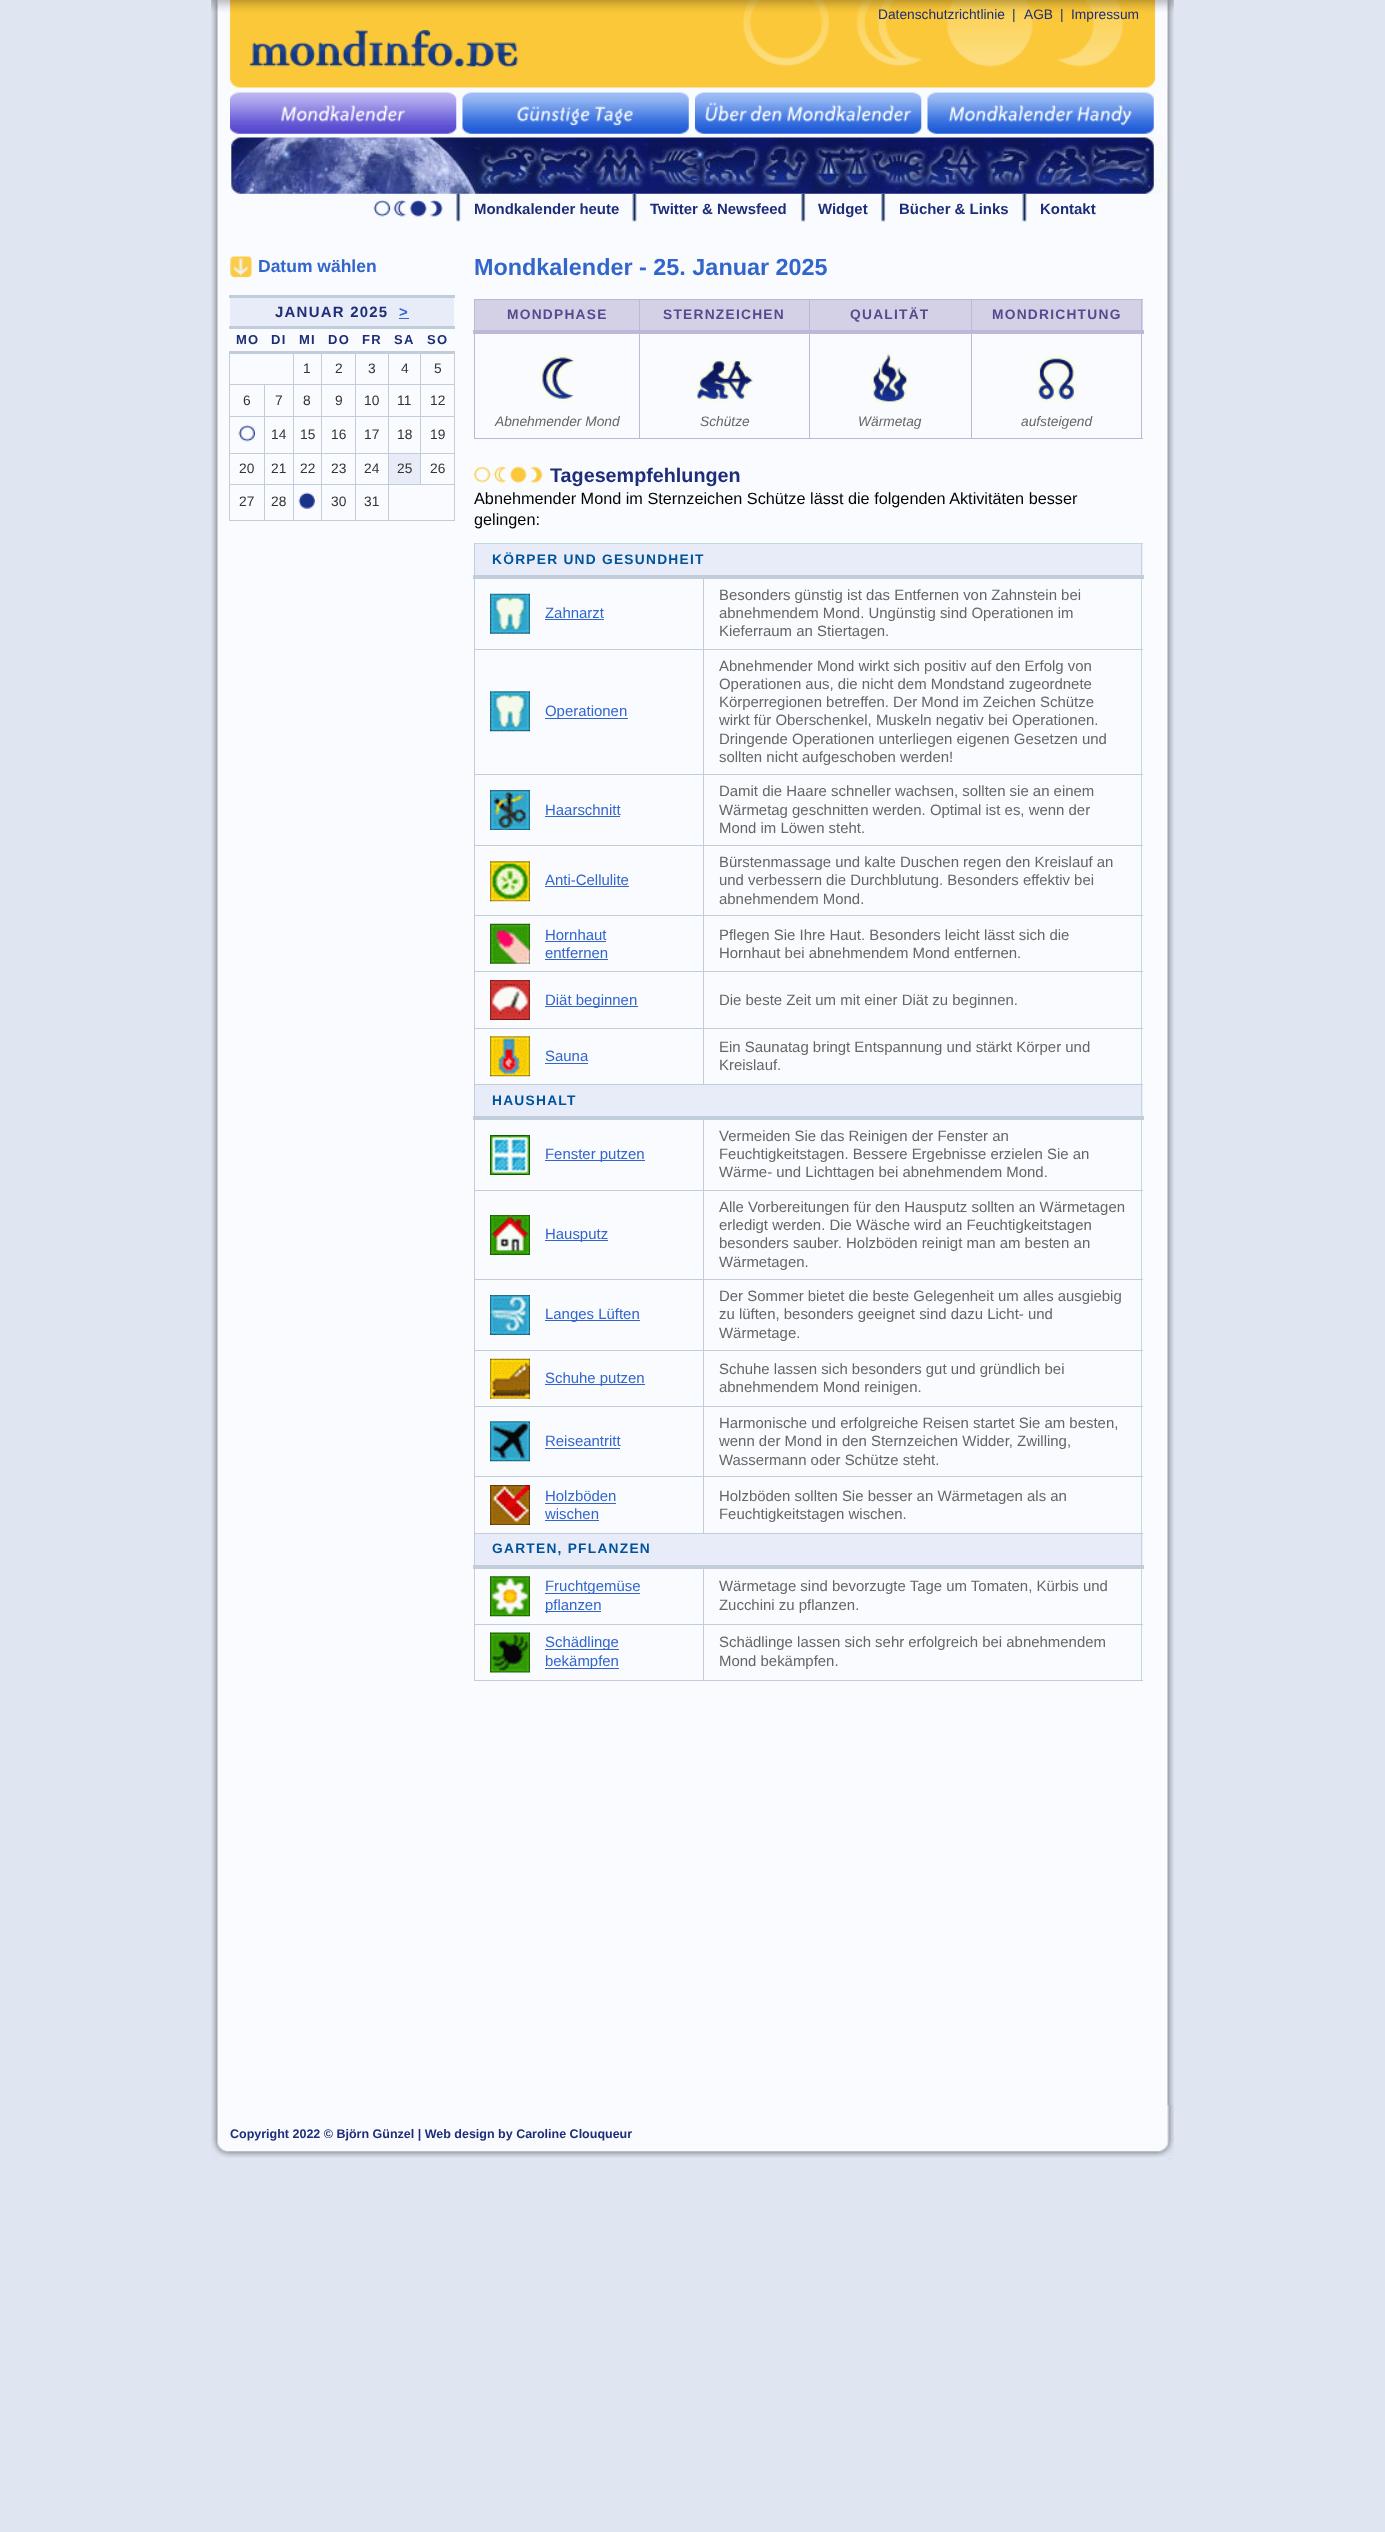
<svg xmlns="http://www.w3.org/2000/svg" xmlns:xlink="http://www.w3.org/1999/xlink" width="1385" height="2532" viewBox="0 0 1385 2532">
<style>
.cls-1{font:13.75px Liberation Sans;fill:#1d2d77}
.cls-2{font:bold 14.95px Liberation Sans;fill:#1d2d77}
.cls-3{font:bold 17.5px Liberation Sans;fill:#3366cc}
.cls-4{font:bold 14.95px Liberation Sans;letter-spacing:1.25px;fill:#1d2d77}
.cls-5{font:bold 14.95px Liberation Sans;letter-spacing:1.25px;fill:#3366cc}
.cls-6{font:bold 13px Liberation Sans;letter-spacing:1.25px;fill:#1d2d77}
.cls-7{font:13.75px Liberation Sans;fill:#333333}
.cls-8{font:bold 23.4px Liberation Sans;fill:#3366cc}
.cls-9{font:bold 13.75px Liberation Sans;letter-spacing:1.25px;fill:#544a8e}
.cls-10{font:italic 13.75px Liberation Sans;fill:#666666}
.cls-11{font:bold 19.75px Liberation Sans;fill:#1d2d77}
.cls-12{font:16.25px Liberation Sans;fill:#000000}
.cls-13{font:bold 13.75px Liberation Sans;letter-spacing:1.25px;fill:#00539b}
.cls-14{font:14.95px Liberation Sans;fill:#3366cc}
.cls-15{font:14.95px Liberation Sans;fill:#666666}
.cls-16{font:bold 12.5px Liberation Sans;fill:#1d2d77}
</style>
<rect width="100%" height="100%" fill="#dfe6f2"/>
<image xlink:href="image0.png" x="211" y="0" width="963" height="2159"/>
<image xlink:href="image1.png" x="211" y="0" width="963" height="88"/>
<image xlink:href="image2.png" x="249" y="30" width="269" height="37"/>
<image xlink:href="image3.png" x="230" y="92" width="227" height="42"/>
<image xlink:href="image4.png" x="462" y="92" width="227" height="42"/>
<image xlink:href="image5.png" x="695" y="92" width="227" height="42"/>
<image xlink:href="image6.png" x="927" y="92" width="227" height="42"/>
<image xlink:href="image7.png" x="231" y="137" width="941" height="57"/>
<image xlink:href="image8.png" x="373" y="200" width="70" height="17"/>
<image xlink:href="image9.png" x="456" y="193" width="5" height="29"/>
<image xlink:href="image10.png" x="632" y="193" width="5" height="29"/>
<image xlink:href="image11.png" x="801" y="193" width="5" height="29"/>
<image xlink:href="image12.png" x="881" y="193" width="5" height="29"/>
<image xlink:href="image13.png" x="1022" y="193" width="5" height="29"/>
<image xlink:href="image14.png" x="230" y="256" width="23" height="22"/>
<rect fill="#e7ecf8" x="230" y="298" width="224" height="28"/>
<rect fill="#c1cdda" x="229" y="295" width="226" height="3"/>
<rect fill="#c1cdda" x="229" y="326" width="226" height="3"/>
<rect fill="#3366cc" x="399" y="318" width="10" height="1"/>
<rect fill="#c1cdda" x="454" y="351" width="1" height="170"/>
<rect fill="#c1cdda" x="420" y="484" width="35" height="1"/>
<rect fill="#c1cdda" x="420" y="453" width="1" height="32"/>
<rect fill="#c1cdda" x="420" y="453" width="35" height="1"/>
<rect fill="#c1cdda" x="420" y="416" width="1" height="38"/>
<rect fill="#c1cdda" x="420" y="416" width="35" height="1"/>
<rect fill="#c1cdda" x="420" y="384" width="1" height="34"/>
<rect fill="#c1cdda" x="420" y="384" width="35" height="1"/>
<rect fill="#c1cdda" x="420" y="351" width="1" height="34"/>
<rect fill="#c1cdda" x="388" y="520" width="67" height="1"/>
<rect fill="#c1cdda" x="388" y="484" width="1" height="37"/>
<rect fill="#c1cdda" x="388" y="484" width="33" height="1"/>
<rect fill="#c1cdda" x="388" y="453" width="1" height="32"/>
<rect fill="#c1cdda" x="388" y="453" width="33" height="1"/>
<rect fill="#c1cdda" x="388" y="416" width="1" height="38"/>
<rect fill="#c1cdda" x="388" y="416" width="33" height="1"/>
<rect fill="#c1cdda" x="388" y="384" width="1" height="34"/>
<rect fill="#c1cdda" x="388" y="384" width="33" height="1"/>
<rect fill="#c1cdda" x="388" y="351" width="1" height="34"/>
<rect fill="#c1cdda" x="355" y="520" width="34" height="1"/>
<rect fill="#c1cdda" x="355" y="484" width="1" height="37"/>
<rect fill="#c1cdda" x="355" y="484" width="34" height="1"/>
<rect fill="#c1cdda" x="355" y="453" width="1" height="32"/>
<rect fill="#c1cdda" x="355" y="453" width="34" height="1"/>
<rect fill="#c1cdda" x="355" y="416" width="1" height="38"/>
<rect fill="#c1cdda" x="355" y="416" width="34" height="1"/>
<rect fill="#c1cdda" x="355" y="384" width="1" height="34"/>
<rect fill="#c1cdda" x="355" y="384" width="34" height="1"/>
<rect fill="#c1cdda" x="355" y="351" width="1" height="34"/>
<rect fill="#c1cdda" x="321" y="520" width="35" height="1"/>
<rect fill="#c1cdda" x="321" y="484" width="1" height="37"/>
<rect fill="#c1cdda" x="321" y="484" width="35" height="1"/>
<rect fill="#c1cdda" x="321" y="453" width="1" height="32"/>
<rect fill="#c1cdda" x="321" y="453" width="35" height="1"/>
<rect fill="#c1cdda" x="321" y="416" width="1" height="38"/>
<rect fill="#c1cdda" x="321" y="416" width="35" height="1"/>
<rect fill="#c1cdda" x="321" y="384" width="1" height="34"/>
<rect fill="#c1cdda" x="321" y="384" width="35" height="1"/>
<rect fill="#c1cdda" x="321" y="351" width="1" height="34"/>
<rect fill="#c1cdda" x="293" y="520" width="30" height="1"/>
<rect fill="#c1cdda" x="293" y="484" width="1" height="37"/>
<rect fill="#c1cdda" x="293" y="484" width="30" height="1"/>
<rect fill="#c1cdda" x="293" y="453" width="1" height="32"/>
<rect fill="#c1cdda" x="293" y="453" width="30" height="1"/>
<rect fill="#c1cdda" x="293" y="416" width="1" height="38"/>
<rect fill="#c1cdda" x="293" y="416" width="30" height="1"/>
<rect fill="#c1cdda" x="293" y="384" width="1" height="34"/>
<rect fill="#c1cdda" x="293" y="384" width="30" height="1"/>
<rect fill="#c1cdda" x="293" y="351" width="1" height="34"/>
<rect fill="#c1cdda" x="264" y="520" width="30" height="1"/>
<rect fill="#c1cdda" x="264" y="484" width="1" height="37"/>
<rect fill="#c1cdda" x="264" y="484" width="30" height="1"/>
<rect fill="#c1cdda" x="264" y="453" width="1" height="32"/>
<rect fill="#c1cdda" x="264" y="453" width="30" height="1"/>
<rect fill="#c1cdda" x="264" y="416" width="1" height="38"/>
<rect fill="#c1cdda" x="264" y="416" width="30" height="1"/>
<rect fill="#c1cdda" x="264" y="384" width="1" height="34"/>
<rect fill="#c1cdda" x="229" y="520" width="36" height="1"/>
<rect fill="#c1cdda" x="229" y="484" width="1" height="37"/>
<rect fill="#c1cdda" x="229" y="484" width="36" height="1"/>
<rect fill="#c1cdda" x="229" y="453" width="1" height="32"/>
<rect fill="#c1cdda" x="229" y="453" width="36" height="1"/>
<rect fill="#c1cdda" x="229" y="416" width="1" height="38"/>
<rect fill="#c1cdda" x="229" y="416" width="36" height="1"/>
<rect fill="#c1cdda" x="229" y="384" width="1" height="34"/>
<rect fill="#c1cdda" x="229" y="384" width="65" height="1"/>
<rect fill="#c1cdda" x="229" y="351" width="1" height="34"/>
<rect fill="#c1cdda" x="229" y="351" width="226" height="3"/>
<image xlink:href="image15.png" x="238" y="425" width="17" height="17"/>
<rect fill="#e7ecf8" x="389" y="454" width="31" height="30"/>
<image xlink:href="image16.png" x="298" y="492" width="17" height="17"/>
<rect fill="#bcb8da" x="474" y="299" width="669" height="1"/>
<rect fill="#d4d1e7" x="972" y="300" width="171" height="30"/>
<rect fill="#bcb8da" x="1141" y="299" width="1" height="140"/>
<rect fill="#bcb8da" x="474" y="438" width="669" height="1"/>
<rect fill="#bcb8da" x="474" y="299" width="1" height="140"/>
<rect fill="#d4d1e7" x="475" y="300" width="164" height="30"/>
<rect fill="#d4d1e7" x="640" y="300" width="169" height="30"/>
<rect fill="#d4d1e7" x="810" y="300" width="161" height="30"/>
<rect fill="#bcb8da" x="639" y="299" width="1" height="140"/>
<rect fill="#bcb8da" x="809" y="299" width="1" height="140"/>
<rect fill="#bcb8da" x="971" y="299" width="1" height="140"/>
<rect fill="#bcb8da" x="473" y="330" width="671" height="4"/>
<image xlink:href="image17.png" x="539" y="354" width="36" height="49"/>
<image xlink:href="image18.png" x="695" y="357" width="60" height="46"/>
<image xlink:href="image19.png" x="870" y="353" width="40" height="52"/>
<image xlink:href="image20.png" x="1035" y="355" width="43" height="48"/>
<image xlink:href="image21.png" x="473" y="466" width="70" height="17"/>
<rect fill="#c1dad7" x="474" y="543" width="669" height="1"/>
<rect fill="#e7ecf8" x="475" y="544" width="668" height="31"/>
<rect fill="#e7ecf8" x="475" y="1085" width="668" height="31"/>
<rect fill="#e7ecf8" x="475" y="1534" width="668" height="31"/>
<rect fill="#c1dad7" x="1141" y="543" width="1" height="1138"/>
<rect fill="#c1cdda" x="703" y="1084" width="440" height="1"/>
<rect fill="#c1cdda" x="703" y="1028" width="1" height="57"/>
<rect fill="#c1cdda" x="703" y="1028" width="440" height="1"/>
<rect fill="#c1cdda" x="703" y="971" width="1" height="58"/>
<rect fill="#c1cdda" x="703" y="971" width="440" height="1"/>
<rect fill="#c1cdda" x="703" y="915" width="1" height="58"/>
<rect fill="#c1cdda" x="703" y="915" width="440" height="1"/>
<rect fill="#c1cdda" x="703" y="845" width="1" height="71"/>
<rect fill="#c1cdda" x="703" y="845" width="440" height="1"/>
<rect fill="#c1cdda" x="703" y="774" width="1" height="72"/>
<rect fill="#c1cdda" x="703" y="774" width="440" height="1"/>
<rect fill="#c1cdda" x="703" y="649" width="1" height="126"/>
<rect fill="#c1cdda" x="703" y="649" width="440" height="1"/>
<rect fill="#c1cdda" x="703" y="576" width="1" height="74"/>
<rect fill="#c1cdda" x="703" y="1533" width="440" height="1"/>
<rect fill="#c1cdda" x="703" y="1476" width="1" height="58"/>
<rect fill="#c1cdda" x="703" y="1476" width="440" height="1"/>
<rect fill="#c1cdda" x="703" y="1406" width="1" height="72"/>
<rect fill="#c1cdda" x="703" y="1406" width="440" height="1"/>
<rect fill="#c1cdda" x="703" y="1350" width="1" height="58"/>
<rect fill="#c1cdda" x="703" y="1350" width="440" height="1"/>
<rect fill="#c1cdda" x="703" y="1279" width="1" height="72"/>
<rect fill="#c1cdda" x="703" y="1279" width="440" height="1"/>
<rect fill="#c1cdda" x="703" y="1190" width="1" height="90"/>
<rect fill="#c1cdda" x="703" y="1190" width="440" height="1"/>
<rect fill="#c1cdda" x="703" y="1118" width="1" height="73"/>
<rect fill="#c1cdda" x="703" y="1680" width="440" height="1"/>
<rect fill="#c1cdda" x="703" y="1624" width="1" height="57"/>
<rect fill="#c1cdda" x="703" y="1624" width="440" height="1"/>
<rect fill="#c1cdda" x="703" y="1566" width="1" height="59"/>
<rect fill="#c1cdda" x="474" y="1680" width="230" height="1"/>
<rect fill="#c1cdda" x="474" y="1624" width="1" height="57"/>
<rect fill="#c1cdda" x="474" y="1624" width="230" height="1"/>
<rect fill="#c1cdda" x="474" y="1533" width="1" height="92"/>
<rect fill="#c1cdda" x="474" y="1533" width="230" height="1"/>
<rect fill="#c1cdda" x="474" y="1476" width="1" height="58"/>
<rect fill="#c1cdda" x="474" y="1476" width="230" height="1"/>
<rect fill="#c1cdda" x="474" y="1406" width="1" height="72"/>
<rect fill="#c1cdda" x="474" y="1406" width="230" height="1"/>
<rect fill="#c1cdda" x="474" y="1350" width="1" height="58"/>
<rect fill="#c1cdda" x="474" y="1350" width="230" height="1"/>
<rect fill="#c1cdda" x="474" y="1279" width="1" height="72"/>
<rect fill="#c1cdda" x="474" y="1279" width="230" height="1"/>
<rect fill="#c1cdda" x="474" y="1190" width="1" height="90"/>
<rect fill="#c1cdda" x="474" y="1190" width="230" height="1"/>
<rect fill="#c1cdda" x="474" y="1084" width="1" height="107"/>
<rect fill="#c1cdda" x="474" y="1084" width="230" height="1"/>
<rect fill="#c1cdda" x="474" y="1028" width="1" height="57"/>
<rect fill="#c1cdda" x="474" y="1028" width="230" height="1"/>
<rect fill="#c1cdda" x="474" y="971" width="1" height="58"/>
<rect fill="#c1cdda" x="474" y="971" width="230" height="1"/>
<rect fill="#c1cdda" x="474" y="915" width="1" height="58"/>
<rect fill="#c1cdda" x="474" y="915" width="230" height="1"/>
<rect fill="#c1cdda" x="474" y="845" width="1" height="71"/>
<rect fill="#c1cdda" x="474" y="845" width="230" height="1"/>
<rect fill="#c1cdda" x="474" y="774" width="1" height="72"/>
<rect fill="#c1cdda" x="474" y="774" width="230" height="1"/>
<rect fill="#c1cdda" x="474" y="649" width="1" height="126"/>
<rect fill="#c1cdda" x="474" y="649" width="230" height="1"/>
<rect fill="#c1cdda" x="474" y="543" width="1" height="107"/>
<rect fill="#c1cdda" x="473" y="575" width="671" height="4"/>
<image xlink:href="image22.png" x="490" y="593" width="40" height="41"/>
<rect fill="#3366cc" x="545" y="619" width="59" height="1"/>
<image xlink:href="image23.png" x="490" y="691" width="40" height="41"/>
<rect fill="#3366cc" x="545" y="718" width="83" height="1"/>
<image xlink:href="image24.png" x="490" y="790" width="40" height="40"/>
<rect fill="#3366cc" x="545" y="816" width="75" height="1"/>
<image xlink:href="image25.png" x="490" y="861" width="40" height="41"/>
<rect fill="#3366cc" x="545" y="886" width="84" height="1"/>
<image xlink:href="image26.png" x="490" y="923" width="40" height="41"/>
<rect fill="#3366cc" x="545" y="941" width="61" height="1"/>
<rect fill="#3366cc" x="545" y="959" width="63" height="1"/>
<image xlink:href="image27.png" x="490" y="980" width="40" height="40"/>
<rect fill="#3366cc" x="545" y="1006" width="93" height="1"/>
<image xlink:href="image28.png" x="490" y="1036" width="40" height="41"/>
<rect fill="#3366cc" x="545" y="1063" width="43" height="1"/>
<rect fill="#c1cdda" x="473" y="1116" width="671" height="4"/>
<image xlink:href="image29.png" x="490" y="1135" width="40" height="40"/>
<rect fill="#3366cc" x="545" y="1160" width="100" height="1"/>
<image xlink:href="image30.png" x="490" y="1215" width="40" height="40"/>
<rect fill="#3366cc" x="545" y="1240" width="63" height="1"/>
<image xlink:href="image31.png" x="490" y="1295" width="40" height="40"/>
<rect fill="#3366cc" x="545" y="1320" width="95" height="1"/>
<image xlink:href="image32.png" x="490" y="1358" width="40" height="41"/>
<rect fill="#3366cc" x="545" y="1384" width="100" height="1"/>
<image xlink:href="image33.png" x="490" y="1421" width="40" height="41"/>
<rect fill="#3366cc" x="545" y="1448" width="75" height="1"/>
<image xlink:href="image34.png" x="490" y="1485" width="40" height="40"/>
<rect fill="#3366cc" x="545" y="1503" width="71" height="1"/>
<rect fill="#3366cc" x="545" y="1520" width="54" height="1"/>
<rect fill="#c1cdda" x="473" y="1565" width="671" height="4"/>
<image xlink:href="image35.png" x="490" y="1576" width="40" height="41"/>
<rect fill="#3366cc" x="545" y="1593" width="95" height="1"/>
<rect fill="#3366cc" x="545" y="1611" width="56" height="1"/>
<image xlink:href="image36.png" x="490" y="1632" width="40" height="41"/>
<rect fill="#3366cc" x="545" y="1649" width="74" height="1"/>
<rect fill="#3366cc" x="545" y="1668" width="74" height="1"/>
<image xlink:href="image37.png" x="211" y="2105" width="963" height="54"/>
<text class="cls-1" x="878" y="19">Datenschutzrichtlinie</text>
<text class="cls-1" x="1012" y="19">|</text>
<text class="cls-1" x="1024" y="19">AGB</text>
<text class="cls-1" x="1060" y="19">|</text>
<text class="cls-1" x="1071" y="19">Impressum</text>
<text class="cls-2" x="474" y="214">Mondkalender heute</text>
<text class="cls-2" x="650" y="214">Twitter &amp; Newsfeed</text>
<text class="cls-2" x="818" y="214">Widget</text>
<text class="cls-2" x="899" y="214">Bücher &amp; Links</text>
<text class="cls-2" x="1040" y="214">Kontakt</text>
<text class="cls-3" x="258" y="272">Datum wählen</text>
<text class="cls-4" x="275" y="317">JANUAR 2025</text>
<text class="cls-5" x="399" y="317">&gt;</text>
<text class="cls-6" x="236" y="344">MO</text>
<text class="cls-6" x="271" y="344">DI</text>
<text class="cls-6" x="299" y="344">MI</text>
<text class="cls-6" x="328" y="344">DO</text>
<text class="cls-6" x="362" y="344">FR</text>
<text class="cls-6" x="394" y="344">SA</text>
<text class="cls-6" x="427" y="344">SO</text>
<text class="cls-7" x="303" y="373">1</text>
<text class="cls-7" x="335" y="373">2</text>
<text class="cls-7" x="368" y="373">3</text>
<text class="cls-7" x="401" y="373">4</text>
<text class="cls-7" x="434" y="373">5</text>
<text class="cls-7" x="243" y="405">6</text>
<text class="cls-7" x="275" y="405">7</text>
<text class="cls-7" x="303" y="405">8</text>
<text class="cls-7" x="335" y="405">9</text>
<text class="cls-7" x="364" y="405">10</text>
<text class="cls-7" x="397" y="405">11</text>
<text class="cls-7" x="430" y="405">12</text>
<text class="cls-7" x="271" y="439">14</text>
<text class="cls-7" x="300" y="439">15</text>
<text class="cls-7" x="331" y="439">16</text>
<text class="cls-7" x="364" y="439">17</text>
<text class="cls-7" x="397" y="439">18</text>
<text class="cls-7" x="430" y="439">19</text>
<text class="cls-7" x="239" y="473">20</text>
<text class="cls-7" x="271" y="473">21</text>
<text class="cls-7" x="300" y="473">22</text>
<text class="cls-7" x="331" y="473">23</text>
<text class="cls-7" x="364" y="473">24</text>
<text class="cls-7" x="397" y="473">25</text>
<text class="cls-7" x="430" y="473">26</text>
<text class="cls-7" x="239" y="506">27</text>
<text class="cls-7" x="271" y="506">28</text>
<text class="cls-7" x="331" y="506">30</text>
<text class="cls-7" x="364" y="506">31</text>
<text class="cls-8" x="474" y="275">Mondkalender - 25. Januar 2025</text>
<text class="cls-9" x="507" y="319">MONDPHASE</text>
<text class="cls-9" x="663" y="319">STERNZEICHEN</text>
<text class="cls-9" x="850" y="319">QUALITÄT</text>
<text class="cls-9" x="992" y="319">MONDRICHTUNG</text>
<text class="cls-10" x="495" y="426">Abnehmender Mond</text>
<text class="cls-10" x="700" y="426">Schütze</text>
<text class="cls-10" x="858" y="426">Wärmetag</text>
<text class="cls-10" x="1021" y="426">aufsteigend</text>
<text class="cls-11" x="550" y="482">Tagesempfehlungen</text>
<text class="cls-12"><tspan x="474" y="504">Abnehmender Mond im Sternzeichen Schütze lässt die folgenden Aktivitäten besser</tspan><tspan x="474" y="525">gelingen:</tspan></text>
<text class="cls-13" x="492" y="564">KÖRPER UND GESUNDHEIT</text>
<text class="cls-14" x="545" y="618">Zahnarzt</text>
<text class="cls-15"><tspan x="719" y="600">Besonders günstig ist das Entfernen von Zahnstein bei</tspan><tspan x="719" y="618">abnehmendem Mond. Ungünstig sind Operationen im</tspan><tspan x="719" y="636">Kieferraum an Stiertagen.</tspan></text>
<text class="cls-14" x="545" y="716">Operationen</text>
<text class="cls-15"><tspan x="719" y="671">Abnehmender Mond wirkt sich positiv auf den Erfolg von</tspan><tspan x="719" y="689">Operationen aus, die nicht dem Mondstand zugeordnete</tspan><tspan x="719" y="707">Körperregionen betreffen. Der Mond im Zeichen Schütze</tspan><tspan x="719" y="725">wirkt für Oberschenkel, Muskeln negativ bei Operationen.</tspan><tspan x="719" y="744">Dringende Operationen unterliegen eigenen Gesetzen und</tspan><tspan x="719" y="762">sollten nicht aufgeschoben werden!</tspan></text>
<text class="cls-14" x="545" y="815">Haarschnitt</text>
<text class="cls-15"><tspan x="719" y="796">Damit die Haare schneller wachsen, sollten sie an einem</tspan><tspan x="719" y="815">Wärmetag geschnitten werden. Optimal ist es, wenn der</tspan><tspan x="719" y="833">Mond im Löwen steht.</tspan></text>
<text class="cls-14" x="545" y="885">Anti-Cellulite</text>
<text class="cls-15"><tspan x="719" y="867">Bürstenmassage und kalte Duschen regen den Kreislauf an</tspan><tspan x="719" y="885">und verbessern die Durchblutung. Besonders effektiv bei</tspan><tspan x="719" y="904">abnehmendem Mond.</tspan></text>
<text class="cls-14"><tspan x="545" y="940">Hornhaut</tspan><tspan x="545" y="958">entfernen</tspan></text>
<text class="cls-15"><tspan x="719" y="940">Pflegen Sie Ihre Haut. Besonders leicht lässt sich die</tspan><tspan x="719" y="958">Hornhaut bei abnehmendem Mond entfernen.</tspan></text>
<text class="cls-14" x="545" y="1005">Diät beginnen</text>
<text class="cls-15" x="719" y="1005">Die beste Zeit um mit einer Diät zu beginnen.</text>
<text class="cls-14" x="545" y="1061">Sauna</text>
<text class="cls-15"><tspan x="719" y="1052">Ein Saunatag bringt Entspannung und stärkt Körper und</tspan><tspan x="719" y="1070">Kreislauf.</tspan></text>
<text class="cls-13" x="492" y="1105">HAUSHALT</text>
<text class="cls-14" x="545" y="1159">Fenster putzen</text>
<text class="cls-15"><tspan x="719" y="1141">Vermeiden Sie das Reinigen der Fenster an</tspan><tspan x="719" y="1159">Feuchtigkeitstagen. Bessere Ergebnisse erzielen Sie an</tspan><tspan x="719" y="1177">Wärme- und Lichttagen bei abnehmendem Mond.</tspan></text>
<text class="cls-14" x="545" y="1239">Hausputz</text>
<text class="cls-15"><tspan x="719" y="1212">Alle Vorbereitungen für den Hausputz sollten an Wärmetagen</tspan><tspan x="719" y="1230">erledigt werden. Die Wäsche wird an Feuchtigkeitstagen</tspan><tspan x="719" y="1248">besonders sauber. Holzböden reinigt man am besten an</tspan><tspan x="719" y="1267">Wärmetagen.</tspan></text>
<text class="cls-14" x="545" y="1319">Langes Lüften</text>
<text class="cls-15"><tspan x="719" y="1301">Der Sommer bietet die beste Gelegenheit um alles ausgiebig</tspan><tspan x="719" y="1319">zu lüften, besonders geeignet sind dazu Licht- und</tspan><tspan x="719" y="1338">Wärmetage.</tspan></text>
<text class="cls-14" x="545" y="1383">Schuhe putzen</text>
<text class="cls-15"><tspan x="719" y="1374">Schuhe lassen sich besonders gut und gründlich bei</tspan><tspan x="719" y="1392">abnehmendem Mond reinigen.</tspan></text>
<text class="cls-14" x="545" y="1446">Reiseantritt</text>
<text class="cls-15"><tspan x="719" y="1428">Harmonische und erfolgreiche Reisen startet Sie am besten,</tspan><tspan x="719" y="1446">wenn der Mond in den Sternzeichen Widder, Zwilling,</tspan><tspan x="719" y="1465">Wassermann oder Schütze steht.</tspan></text>
<text class="cls-14"><tspan x="545" y="1501">Holzböden</tspan><tspan x="545" y="1519">wischen</tspan></text>
<text class="cls-15"><tspan x="719" y="1501">Holzböden sollten Sie besser an Wärmetagen als an</tspan><tspan x="719" y="1519">Feuchtigkeitstagen wischen.</tspan></text>
<text class="cls-13" x="492" y="1553">GARTEN, PFLANZEN</text>
<text class="cls-14"><tspan x="545" y="1591">Fruchtgemüse</tspan><tspan x="545" y="1610">pflanzen</tspan></text>
<text class="cls-15"><tspan x="719" y="1591">Wärmetage sind bevorzugte Tage um Tomaten, Kürbis und</tspan><tspan x="719" y="1610">Zucchini zu pflanzen.</tspan></text>
<text class="cls-14"><tspan x="545" y="1647">Schädlinge</tspan><tspan x="545" y="1666">bekämpfen</tspan></text>
<text class="cls-15"><tspan x="719" y="1647">Schädlinge lassen sich sehr erfolgreich bei abnehmendem</tspan><tspan x="719" y="1666">Mond bekämpfen.</tspan></text>
<text class="cls-16" x="230" y="2138">Copyright 2022 © Björn Günzel | Web design by Caroline Clouqueur</text>
</svg>
